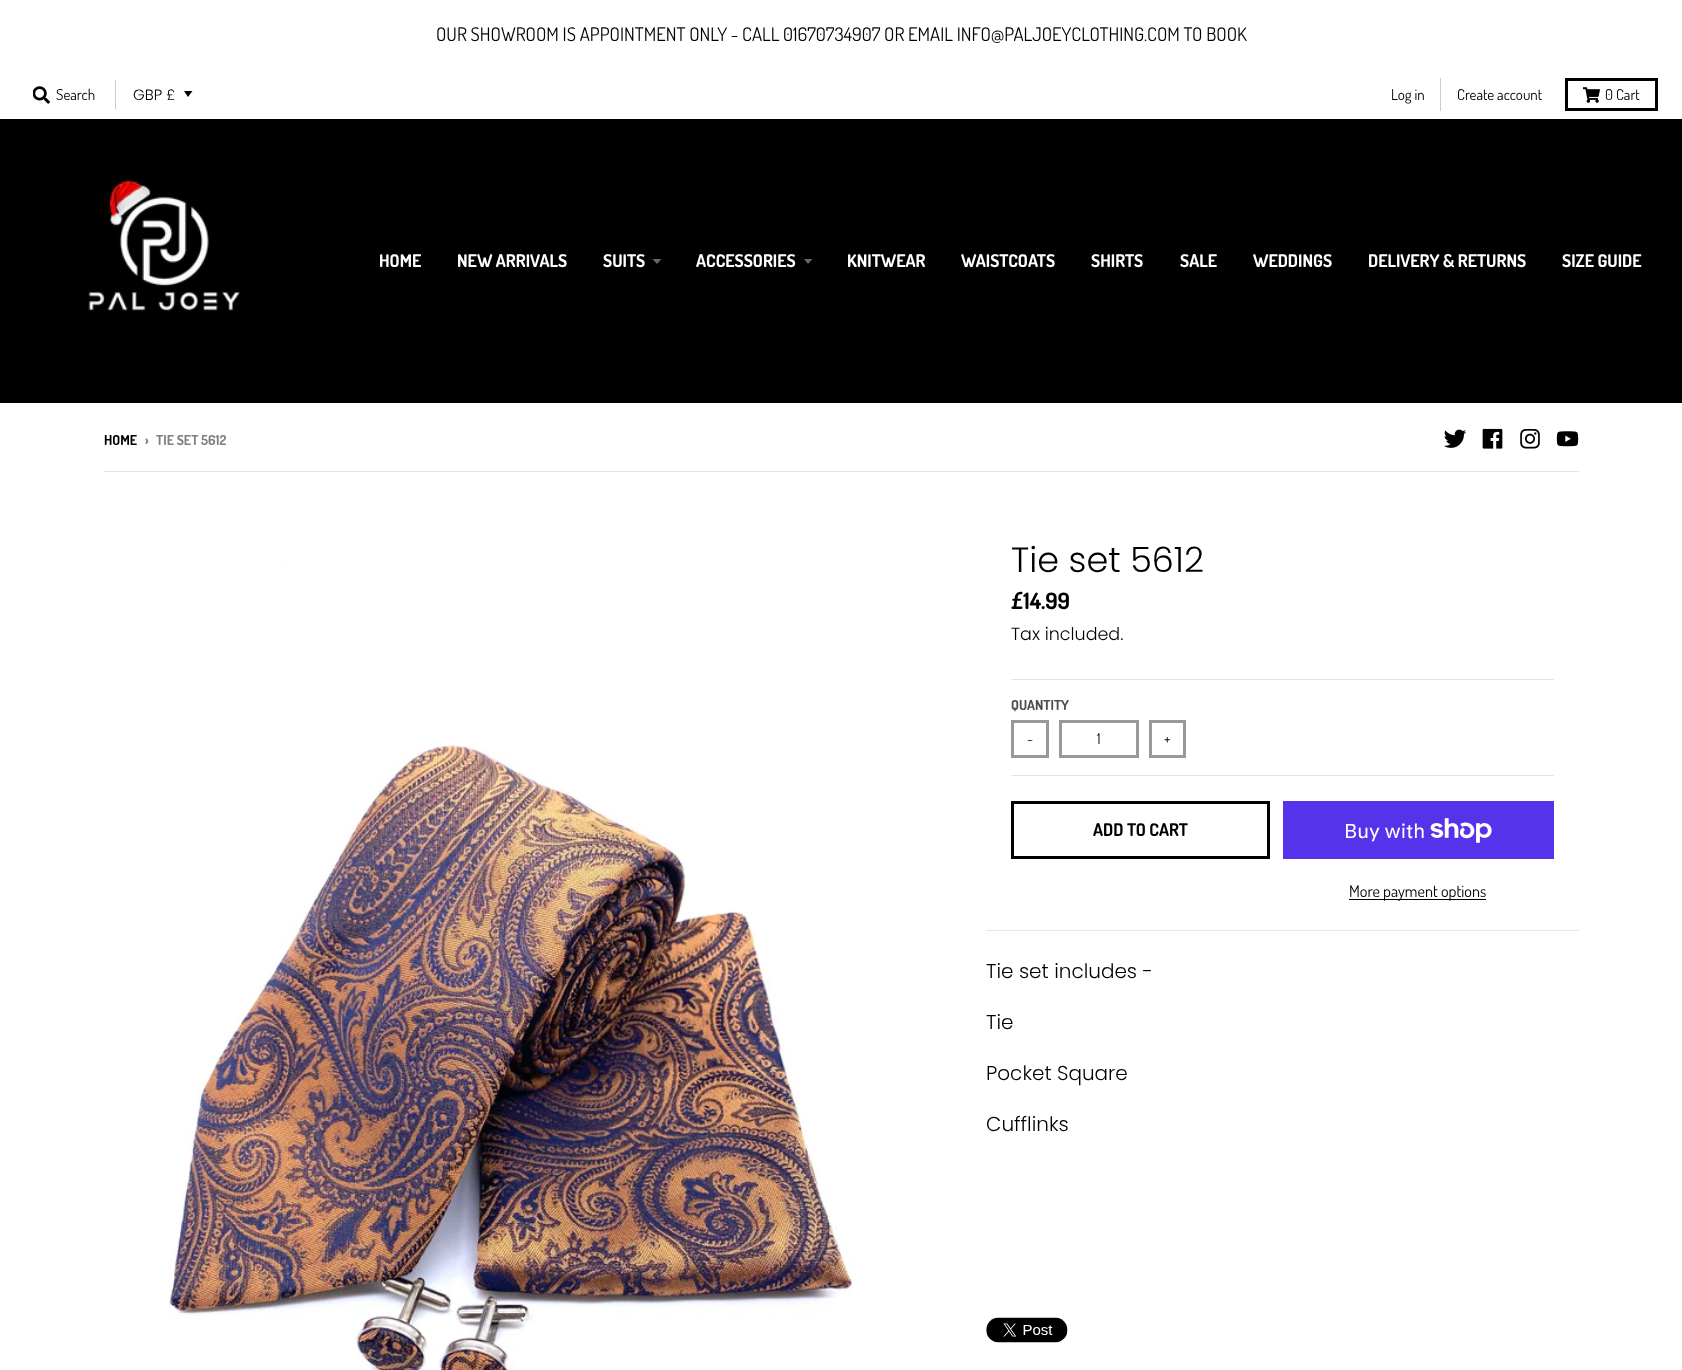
<svg xmlns="http://www.w3.org/2000/svg" xmlns:xlink="http://www.w3.org/1999/xlink" width="1682" height="1370" viewBox="0 0 1682 1370">
<style>
.cls-1{font:18.75px Dosis;fill:#000000}
.cls-2{font:15px Dosis;fill:#000000}
.cls-3{font:300 15px Poppins;fill:#000000}
.cls-4{font:bold 17.5px Dosis;fill:#ffffff}
.cls-5{font:bold 13.75px Dosis;fill:#000000}
.cls-6{font:bold 13.75px Dosis;fill:#7f7f7f}
.cls-7{font:300 35px Poppins;fill:#000000}
.cls-8{font:bold 22.5px Dosis;fill:#000000}
.cls-9{font:300 17.5px Poppins;fill:#000000}
.cls-10{font:bold 13.75px Dosis;fill:#4c4c4c}
.cls-11{font:bold 17.5px Dosis;fill:#000000}
.cls-12{font:20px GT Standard;fill:#ffffff}
.cls-13{font:16.25px Dosis;fill:#000000}
.cls-14{font:300 20px Poppins;fill:#000000}
</style>
<rect width="100%" height="100%" fill="#ffffff"/>
<image xlink:href="image0.png" x="33" y="86" width="17" height="18"/>
<rect fill="#cccccc" x="115" y="80" width="1" height="29"/>
<path fill="#000000" d="M184 91L188 97L192.5 91Z"/>
<rect fill="#cccccc" x="1440" y="78" width="1" height="33"/>
<rect fill="none" stroke="#000000" stroke-width="3" x="1566.5" y="79.5" width="90" height="30"/>
<image xlink:href="image1.png" x="1583" y="87" width="17" height="16"/>
<rect fill="#000000" x="0" y="119" width="1682" height="284"/>
<image xlink:href="image2.png" x="88" y="179" width="152" height="133"/>
<path fill="#666666" d="M652.5 259L657 264L661.5 259Z"/>
<path fill="#666666" d="M804 259L808 264L812.5 259Z"/>
<image xlink:href="image3.png" x="1444" y="429" width="22" height="19"/>
<image xlink:href="image4.png" x="1482" y="428" width="21" height="21"/>
<image xlink:href="image5.png" x="1520" y="429" width="20" height="20"/>
<image xlink:href="image6.png" x="1556" y="431" width="23" height="16"/>
<rect fill="#e5e5e5" x="104" y="471" width="1475" height="1"/>
<image xlink:href="image7.png" x="169" y="560" width="686" height="810"/>
<rect fill="#e5e5e5" x="986" y="930" width="593" height="1"/>
<rect fill="#e5e5e5" x="1011" y="679" width="543" height="1"/>
<rect fill="#e5e5e5" x="1011" y="775" width="543" height="1"/>
<rect fill="none" stroke="#999999" stroke-width="3" x="1012.5" y="721.5" width="35" height="35"/>
<rect fill="none" stroke="#999999" stroke-width="3" x="1060.5" y="721.5" width="77" height="35"/>
<rect fill="none" stroke="#999999" stroke-width="3" x="1150.5" y="721.5" width="34" height="35"/>
<rect fill="none" stroke="#000000" stroke-width="3" x="1012.5" y="802.5" width="256" height="55"/>
<rect fill="#5433eb" x="1283" y="801" width="271" height="58"/>
<image xlink:href="image8.png" x="1430" y="818" width="62" height="25"/>
<rect fill="#000000" x="1349" y="899" width="137" height="1"/>
<image xlink:href="image9.png" x="986" y="1317" width="82" height="26"/>
<text class="cls-1" x="436" y="41">OUR SHOWROOM IS APPOINTMENT ONLY - CALL 01670734907 OR EMAIL INFO@PALJOEYCLOTHING.COM TO BOOK</text>
<text class="cls-2" x="56" y="100">Search</text>
<text class="cls-3" x="133" y="100">GBP £</text>
<text class="cls-2" x="1391" y="100">Log in</text>
<text class="cls-2" x="1457" y="100">Create account</text>
<text class="cls-2" x="1605" y="100">0 Cart</text>
<text class="cls-4" x="379" y="267">HOME</text>
<text class="cls-4" x="457" y="267">NEW ARRIVALS</text>
<text class="cls-4" x="603" y="267">SUITS</text>
<text class="cls-4" x="696" y="267">ACCESSORIES</text>
<text class="cls-4" x="847" y="267">KNITWEAR</text>
<text class="cls-4" x="961" y="267">WAISTCOATS</text>
<text class="cls-4" x="1091" y="267">SHIRTS</text>
<text class="cls-4" x="1180" y="267">SALE</text>
<text class="cls-4" x="1253" y="267">WEDDINGS</text>
<text class="cls-4" x="1368" y="267">DELIVERY &amp; RETURNS</text>
<text class="cls-4" x="1562" y="267">SIZE GUIDE</text>
<text class="cls-5" x="104" y="445">HOME</text>
<text class="cls-6" x="145" y="445">›</text>
<text class="cls-6" x="156" y="445">TIE SET 5612</text>
<text class="cls-7" x="1011" y="572">Tie set 5612</text>
<text class="cls-8" x="1011" y="609">£14.99</text>
<text class="cls-9" x="1011" y="640">Tax included.</text>
<text class="cls-10" x="1011" y="710">QUANTITY</text>
<text class="cls-2" x="1027" y="744">-</text>
<text class="cls-2" x="1097" y="744">1</text>
<text class="cls-2" x="1164" y="744">+</text>
<text class="cls-11" x="1093" y="836">ADD TO CART</text>
<text class="cls-12" x="1344" y="838">Buy with</text>
<text class="cls-13" x="1349" y="897">More payment options</text>
<text class="cls-14" x="986" y="978">Tie set includes -</text>
<text class="cls-14" x="986" y="1029">Tie</text>
<text class="cls-14" x="986" y="1080">Pocket Square</text>
<text class="cls-14" x="986" y="1131">Cufflinks</text>
</svg>
